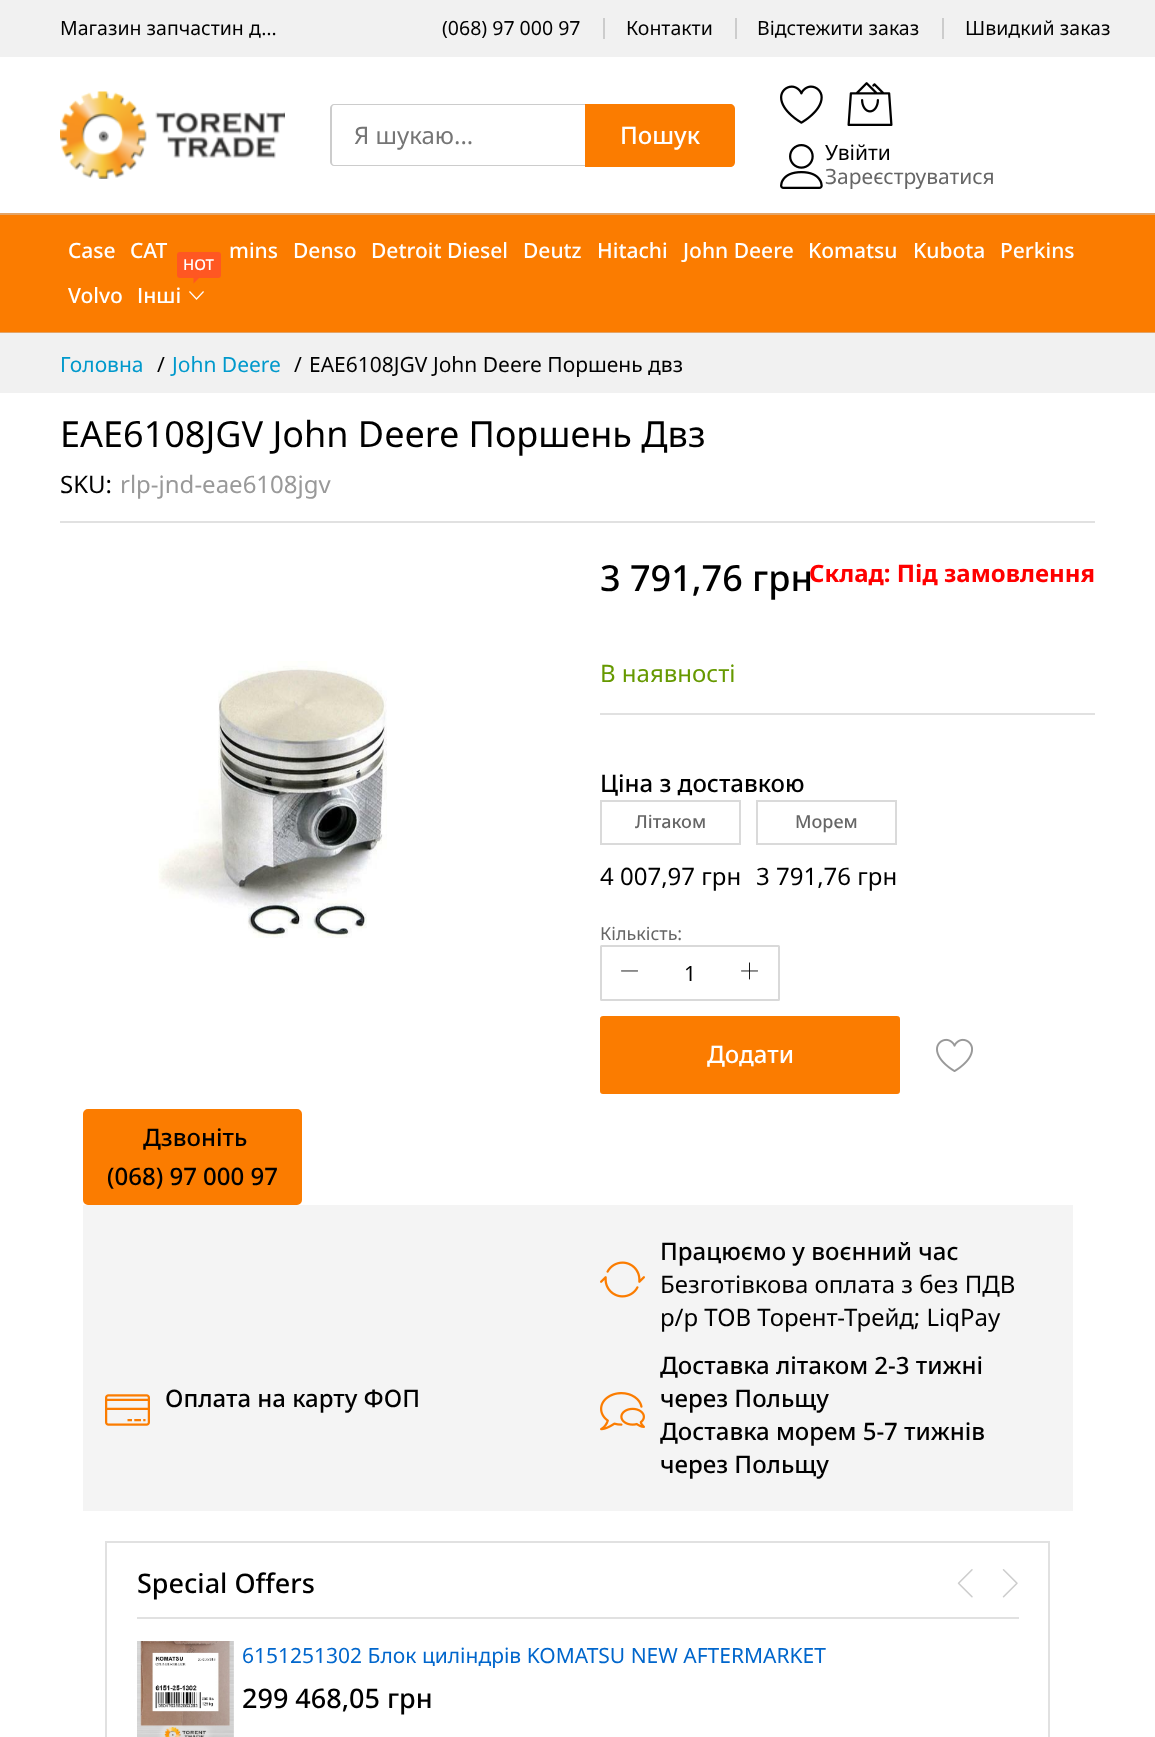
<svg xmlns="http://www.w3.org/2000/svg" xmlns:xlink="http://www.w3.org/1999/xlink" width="1155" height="1737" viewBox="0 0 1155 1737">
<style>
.cls-1{font:19.5px Noto Sans;fill:#000000}
.cls-2{font:24px Noto Sans;fill:#757575}
.cls-3{font:500 24px Noto Sans;fill:#ffffff}
.cls-4{font:21px Noto Sans;fill:#000000}
.cls-5{font:21px Noto Sans;fill:#666666}
.cls-6{font:500 21px Noto Sans;fill:#ffffff}
.cls-7{font:500 15px Noto Sans;fill:#ffffff}
.cls-8{font:21px Noto Sans;fill:#0099cc}
.cls-9{font:36px Noto Sans;fill:#000000}
.cls-10{font:24px Noto Sans;fill:#000000}
.cls-11{font:24px Noto Sans;fill:#999999}
.cls-12{font:bold 24px Noto Sans;fill:#ff0000}
.cls-13{font:24px Noto Sans;fill:#669900}
.cls-14{font:500 36px Noto Sans;fill:#000000}
.cls-15{font:500 24px Noto Sans;fill:#000000}
.cls-16{font:500 18px Noto Sans;fill:#666666}
.cls-17{font:18px Noto Sans;fill:#666666}
.cls-18{font:500 27px Noto Sans;fill:#000000}
.cls-19{font:21px Noto Sans;fill:#0066cc}
</style>
<rect width="100%" height="100%" fill="#ffffff"/>
<rect fill="#f1f1f1" x="0" y="0" width="1155" height="57"/>
<rect fill="#cccccc" x="603" y="18" width="2" height="21"/>
<rect fill="#cccccc" x="735" y="18" width="2" height="21"/>
<rect fill="#cccccc" x="942" y="18" width="2" height="21"/>
<image xlink:href="image0.png" x="60" y="91" width="225" height="88"/>
<path fill="#cccccc" fill-rule="evenodd" d="M334 104H585V166H334C332 166 330 164 330 162V108C330 106 332 104 334 104ZM334 105H585V165H334C333 165 332 164 332 162V108C332 106 333 105 334 105Z"/>
<path fill="#fb7c00" d="M585 104H730C733 104 735 106 735 109V162C735 165 733 167 730 167H585Z"/>
<image xlink:href="image1.png" x="780" y="85" width="43" height="39"/>
<image xlink:href="image2.png" x="847" y="82" width="46" height="44"/>
<image xlink:href="image3.png" x="780" y="144" width="43" height="45"/>
<rect fill="#fb7c00" x="0" y="215" width="1155" height="117"/>
<rect fill="#e4a466" x="0" y="332" width="1155" height="1"/>
<rect fill="#e4a466" x="0" y="213" width="1155" height="2"/>
<rect fill="#ff5722" x="177" y="252" width="44" height="26" rx="3"/>
<path fill="#ff5722" d="M193.5 277.5H199.5L193.5 283.5Z"/>
<image xlink:href="image4.png" x="189" y="291" width="15" height="9"/>
<rect fill="#f1f1f1" x="0" y="333" width="1155" height="60"/>
<rect fill="#e1e1e1" x="60" y="521" width="1035" height="2"/>
<image xlink:href="image5.png" x="158" y="661" width="229" height="277"/>
<rect fill="#e1e1e1" x="600" y="713" width="495" height="2"/>
<rect fill="none" stroke="#dadada" stroke-width="2" x="601" y="801" width="139" height="43"/>
<rect fill="none" stroke="#dadada" stroke-width="2" x="757" y="801" width="139" height="43"/>
<rect fill="none" stroke="#d9d9d9" stroke-width="2" x="601" y="946" width="178" height="54" rx="0.5"/>
<image xlink:href="image6.png" x="621" y="970" width="17" height="2"/>
<image xlink:href="image7.png" x="741" y="962" width="17" height="18"/>
<rect fill="#fb7c00" stroke="#fb7c00" stroke-width="2" x="601" y="1017" width="298" height="76" rx="2"/>
<image xlink:href="image8.png" x="936" y="1038" width="37" height="34"/>
<rect fill="#fb7c00" stroke="#fb7c00" stroke-width="2" x="84" y="1110" width="217" height="94" rx="4"/>
<rect fill="#f4f4f4" x="83" y="1205" width="990" height="306"/>
<image xlink:href="image9.png" x="600" y="1261" width="45" height="37"/>
<image xlink:href="image10.png" x="105" y="1394" width="45" height="32"/>
<image xlink:href="image11.png" x="600" y="1392" width="45" height="39"/>
<rect fill="none" stroke="#e1e1e1" stroke-width="2" x="106" y="1542" width="943" height="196"/>
<rect fill="#e1e1e1" x="137" y="1617" width="882" height="2"/>
<image xlink:href="image12.png" x="957" y="1569" width="16" height="29"/>
<image xlink:href="image13.png" x="1002" y="1569" width="16" height="29"/>
<image xlink:href="image14.png" x="137" y="1641" width="97" height="96"/>
<text class="cls-1" x="60" y="35">Магазин запчастин д…</text>
<text class="cls-1" x="442" y="35">(068) 97 000 97</text>
<text class="cls-1" x="626" y="35">Контакти</text>
<text class="cls-1" x="757" y="35">Відстежити заказ</text>
<text class="cls-1" x="965" y="35">Швидкий заказ</text>
<text class="cls-2" x="354" y="144">Я шукаю...</text>
<text class="cls-3" x="620" y="144">Пошук</text>
<text class="cls-4" x="825" y="160">Увійти</text>
<text class="cls-5" x="825" y="184">Зареєструватися</text>
<text class="cls-6" x="68" y="258">Case</text>
<text class="cls-6" x="130" y="258">CAT</text>
<text class="cls-6" x="229" y="258">mins</text>
<text class="cls-6" x="293" y="258">Denso</text>
<text class="cls-6" x="371" y="258">Detroit Diesel</text>
<text class="cls-6" x="523" y="258">Deutz</text>
<text class="cls-6" x="597" y="258">Hitachi</text>
<text class="cls-6" x="683" y="258">John Deere</text>
<text class="cls-6" x="808" y="258">Komatsu</text>
<text class="cls-6" x="913" y="258">Kubota</text>
<text class="cls-6" x="1000" y="258">Perkins</text>
<text class="cls-6" x="68" y="303">Volvo</text>
<text class="cls-7" x="183" y="270">HOT</text>
<text class="cls-6" x="137" y="303">Інші</text>
<text class="cls-8" x="60" y="372">Головна</text>
<text class="cls-4" x="157" y="372">/</text>
<text class="cls-8" x="172" y="372">John Deere</text>
<text class="cls-4" x="294" y="372">/</text>
<text class="cls-4" x="309" y="372">EAE6108JGV John Deere Поршень двз</text>
<text class="cls-9" x="60" y="447">EAE6108JGV John Deere Поршень Двз</text>
<text class="cls-10" x="60" y="493">SKU:</text>
<text class="cls-11" x="120" y="493">rlp-jnd-eae6108jgv</text>
<text class="cls-12" x="809" y="582">Склад: Під замовлення</text>
<text class="cls-13" x="600" y="682">В наявності</text>
<text class="cls-14" x="600" y="591">3 791,76 грн</text>
<text class="cls-15" x="600" y="792">Ціна з доставкою</text>
<text class="cls-16" x="635" y="828">Літаком</text>
<text class="cls-10" x="600" y="885">4 007,97 грн</text>
<text class="cls-16" x="795" y="828">Морем</text>
<text class="cls-10" x="756" y="885">3 791,76 грн</text>
<text class="cls-17" x="600" y="940">Кількість:</text>
<text class="cls-4" x="684" y="981">1</text>
<text class="cls-3" x="707" y="1063">Додати</text>
<text class="cls-15" x="143" y="1146">Дзвоніть</text>
<text class="cls-15" x="107" y="1185">(068) 97 000 97</text>
<text class="cls-15" x="660" y="1260">Працюємо у воєнний час</text>
<text class="cls-10"><tspan x="660" y="1293">Безготівкова оплата з без ПДВ</tspan><tspan x="660" y="1326">р/р ТОВ Торент-Трейд; LiqPay</tspan></text>
<text class="cls-15" x="165" y="1407">Оплата на карту ФОП</text>
<text class="cls-15"><tspan x="660" y="1374">Доставка літаком 2-3 тижні</tspan><tspan x="660" y="1407">через Польщу</tspan><tspan x="660" y="1440">Доставка морем 5-7 тижнів</tspan><tspan x="660" y="1473">через Польщу</tspan></text>
<text class="cls-18" x="137" y="1593">Special Offers</text>
<text class="cls-19" x="242" y="1663">6151251302 Блок циліндрів KOMATSU NEW AFTERMARKET</text>
<text class="cls-18" x="242" y="1708">299 468,05 грн</text>
</svg>
